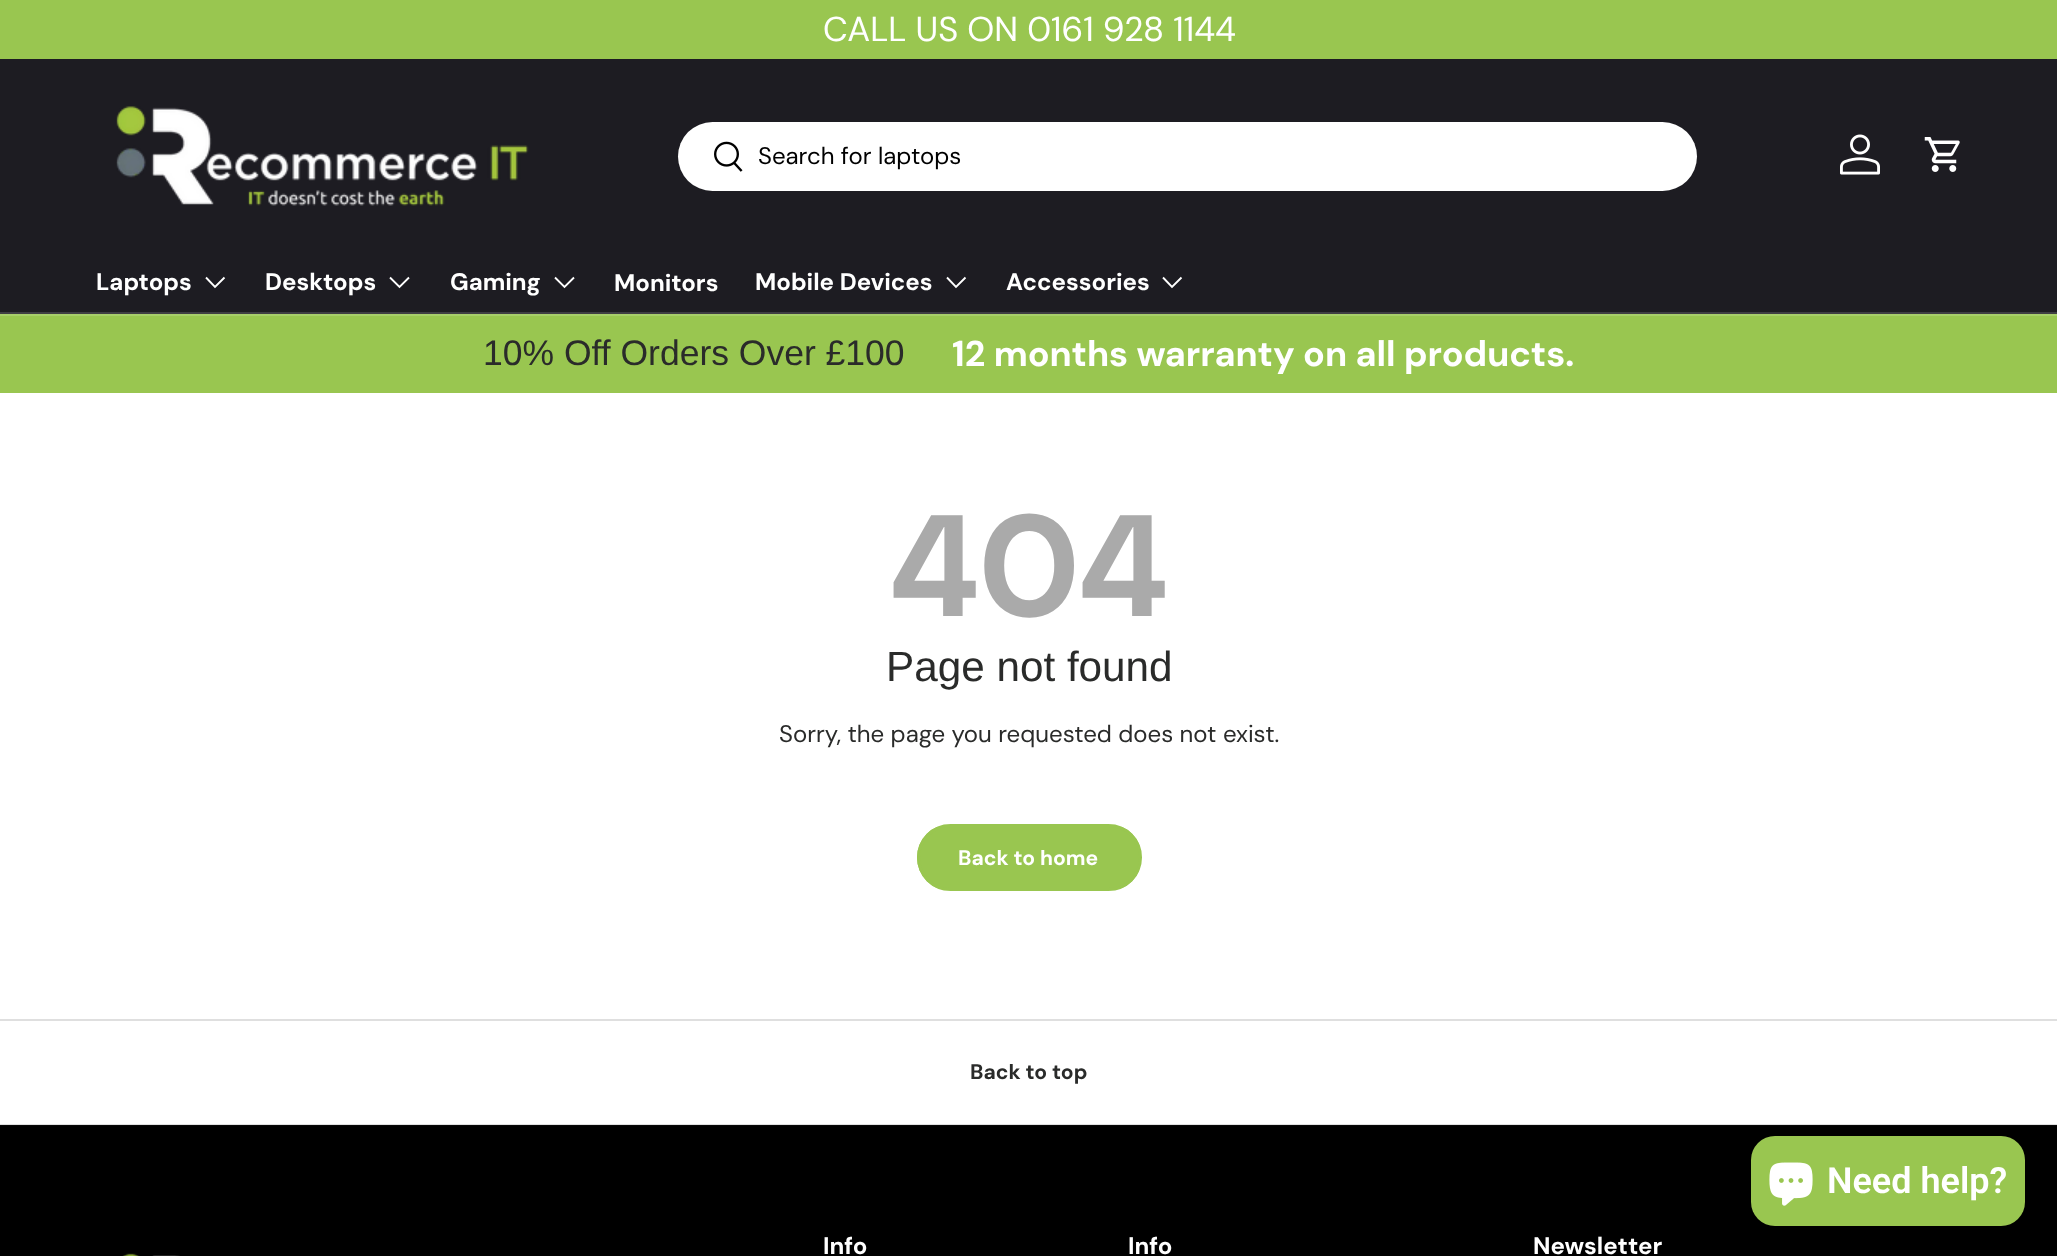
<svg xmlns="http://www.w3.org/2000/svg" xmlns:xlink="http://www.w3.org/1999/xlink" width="2057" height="1256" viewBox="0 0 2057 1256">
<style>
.cls-1{font:34.5px 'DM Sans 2';fill:#ffffff}
.cls-2{font:24px DM Sans;fill:#000000}
.cls-3{font:bold 24px 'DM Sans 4';fill:#ffffff}
.cls-4{font:35.5px Liberation Sans;fill:#2a2b2a}
.cls-5{font:bold 36px 'DM Sans 2';fill:#ffffff}
.cls-6{font:bold 144px DM Sans;fill:#aaaaaa}
.cls-7{font:42.25px Liberation Sans;fill:#2a2b2a}
.cls-8{font:24px DM Sans;fill:#2a2b2a}
.cls-9{font:bold 21px 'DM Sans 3';fill:#ffffff}
.cls-10{font:bold 21px 'DM Sans 3';fill:#2a2b2a}
.cls-11{font:600 36px Roboto;fill:#ffffff}
</style>
<defs>
<clipPath id="clip1"><rect x="917" y="824" width="225" height="67" rx="33.5"/></clipPath>
<linearGradient id="g1" gradientUnits="userSpaceOnUse" x1="494" y1="778" x2="1126" y2="936"><stop offset="0.6" stop-color="#afd376"/><stop offset="0.6" stop-color="#99c650"/><stop offset="1" stop-color="#99c650"/></linearGradient>
</defs>
<rect width="100%" height="100%" fill="#ffffff"/>
<rect fill="#dfdfdf" x="0" y="1124" width="2057" height="1"/>
<rect fill="#99c650" x="0" y="0" width="2057" height="59"/>
<rect fill="#1d1c22" x="0" y="59" width="2057" height="253"/>
<rect fill="#3f3e43" x="0" y="312" width="2057" height="2"/>
<image xlink:href="image0.png" x="116" y="106" width="413" height="100"/>
<rect fill="#ffffff" x="678" y="122" width="1019" height="69" rx="34.5"/>
<image xlink:href="image1.png" x="714" y="141" width="29" height="31"/>
<image xlink:href="image2.png" x="1840" y="134" width="40" height="41"/>
<image xlink:href="image3.png" x="1924" y="137" width="36" height="35"/>
<path fill="none" stroke="#ffffff" stroke-width="1.9" d="M224.5 277.5L215 287L206 277.5"/>
<path fill="none" stroke="#ffffff" stroke-width="1.9" d="M409 277.5L399.5 287L390 277.5"/>
<path fill="none" stroke="#ffffff" stroke-width="1.9" d="M574 277.5L564.5 287L555 277.5"/>
<path fill="none" stroke="#ffffff" stroke-width="1.9" d="M965.5 277.5L956 287L947 277.5"/>
<path fill="none" stroke="#ffffff" stroke-width="1.9" d="M1181.5 277.5L1172 287L1163 277.5"/>
<rect fill="#99c650" x="0" y="316" width="2057" height="77"/>
<rect fill="#a8cf6a" x="0" y="314" width="2057" height="2"/>
<g clip-path="url(#clip1)">
<rect fill="url(#g1)" x="917" y="827" width="222" height="61"/>
</g>
<rect fill="none" stroke="#99c650" stroke-width="3" x="918.5" y="825.5" width="222" height="64" rx="32"/>
<rect fill="#dfdfdf" x="0" y="1019" width="2057" height="2"/>
<rect fill="#000000" x="0" y="1126" width="2057" height="130"/>
<rect fill="#060606" x="0" y="1125" width="2057" height="1"/>
<image xlink:href="image4.png" x="122" y="1253" width="58" height="3"/>
<rect fill="#99c650" x="1751" y="1136" width="274" height="90" rx="24"/>
<image xlink:href="image5.png" x="1769" y="1162" width="44" height="44"/>
<text class="cls-1" x="823" y="41">CALL US ON 0161 928 1144</text>
<text class="cls-2" x="758" y="164">Search for laptops</text>
<text class="cls-3" x="96" y="290">Laptops</text>
<text class="cls-3" x="265" y="290">Desktops</text>
<text class="cls-3" x="450" y="290">Gaming</text>
<text class="cls-3" x="614" y="291">Monitors</text>
<text class="cls-3" x="755" y="290">Mobile Devices</text>
<text class="cls-3" x="1006" y="290">Accessories</text>
<text class="cls-4" x="483" y="365">10% Off Orders Over £100</text>
<text class="cls-5" x="952" y="366">12 months warranty on all products.</text>
<text class="cls-6" x="890" y="616">404</text>
<text class="cls-7" x="886" y="681">Page not found</text>
<text class="cls-8" x="779" y="742">Sorry, the page you requested does not exist.</text>
<text class="cls-9" x="958" y="865">Back to home</text>
<text class="cls-10" x="970" y="1079">Back to top</text>
<text class="cls-3" x="823" y="1254">Info</text>
<text class="cls-3" x="1128" y="1254">Info</text>
<text class="cls-3" x="1533" y="1254">Newsletter</text>
<text class="cls-11" x="1827" y="1193">Need help?</text>
</svg>
